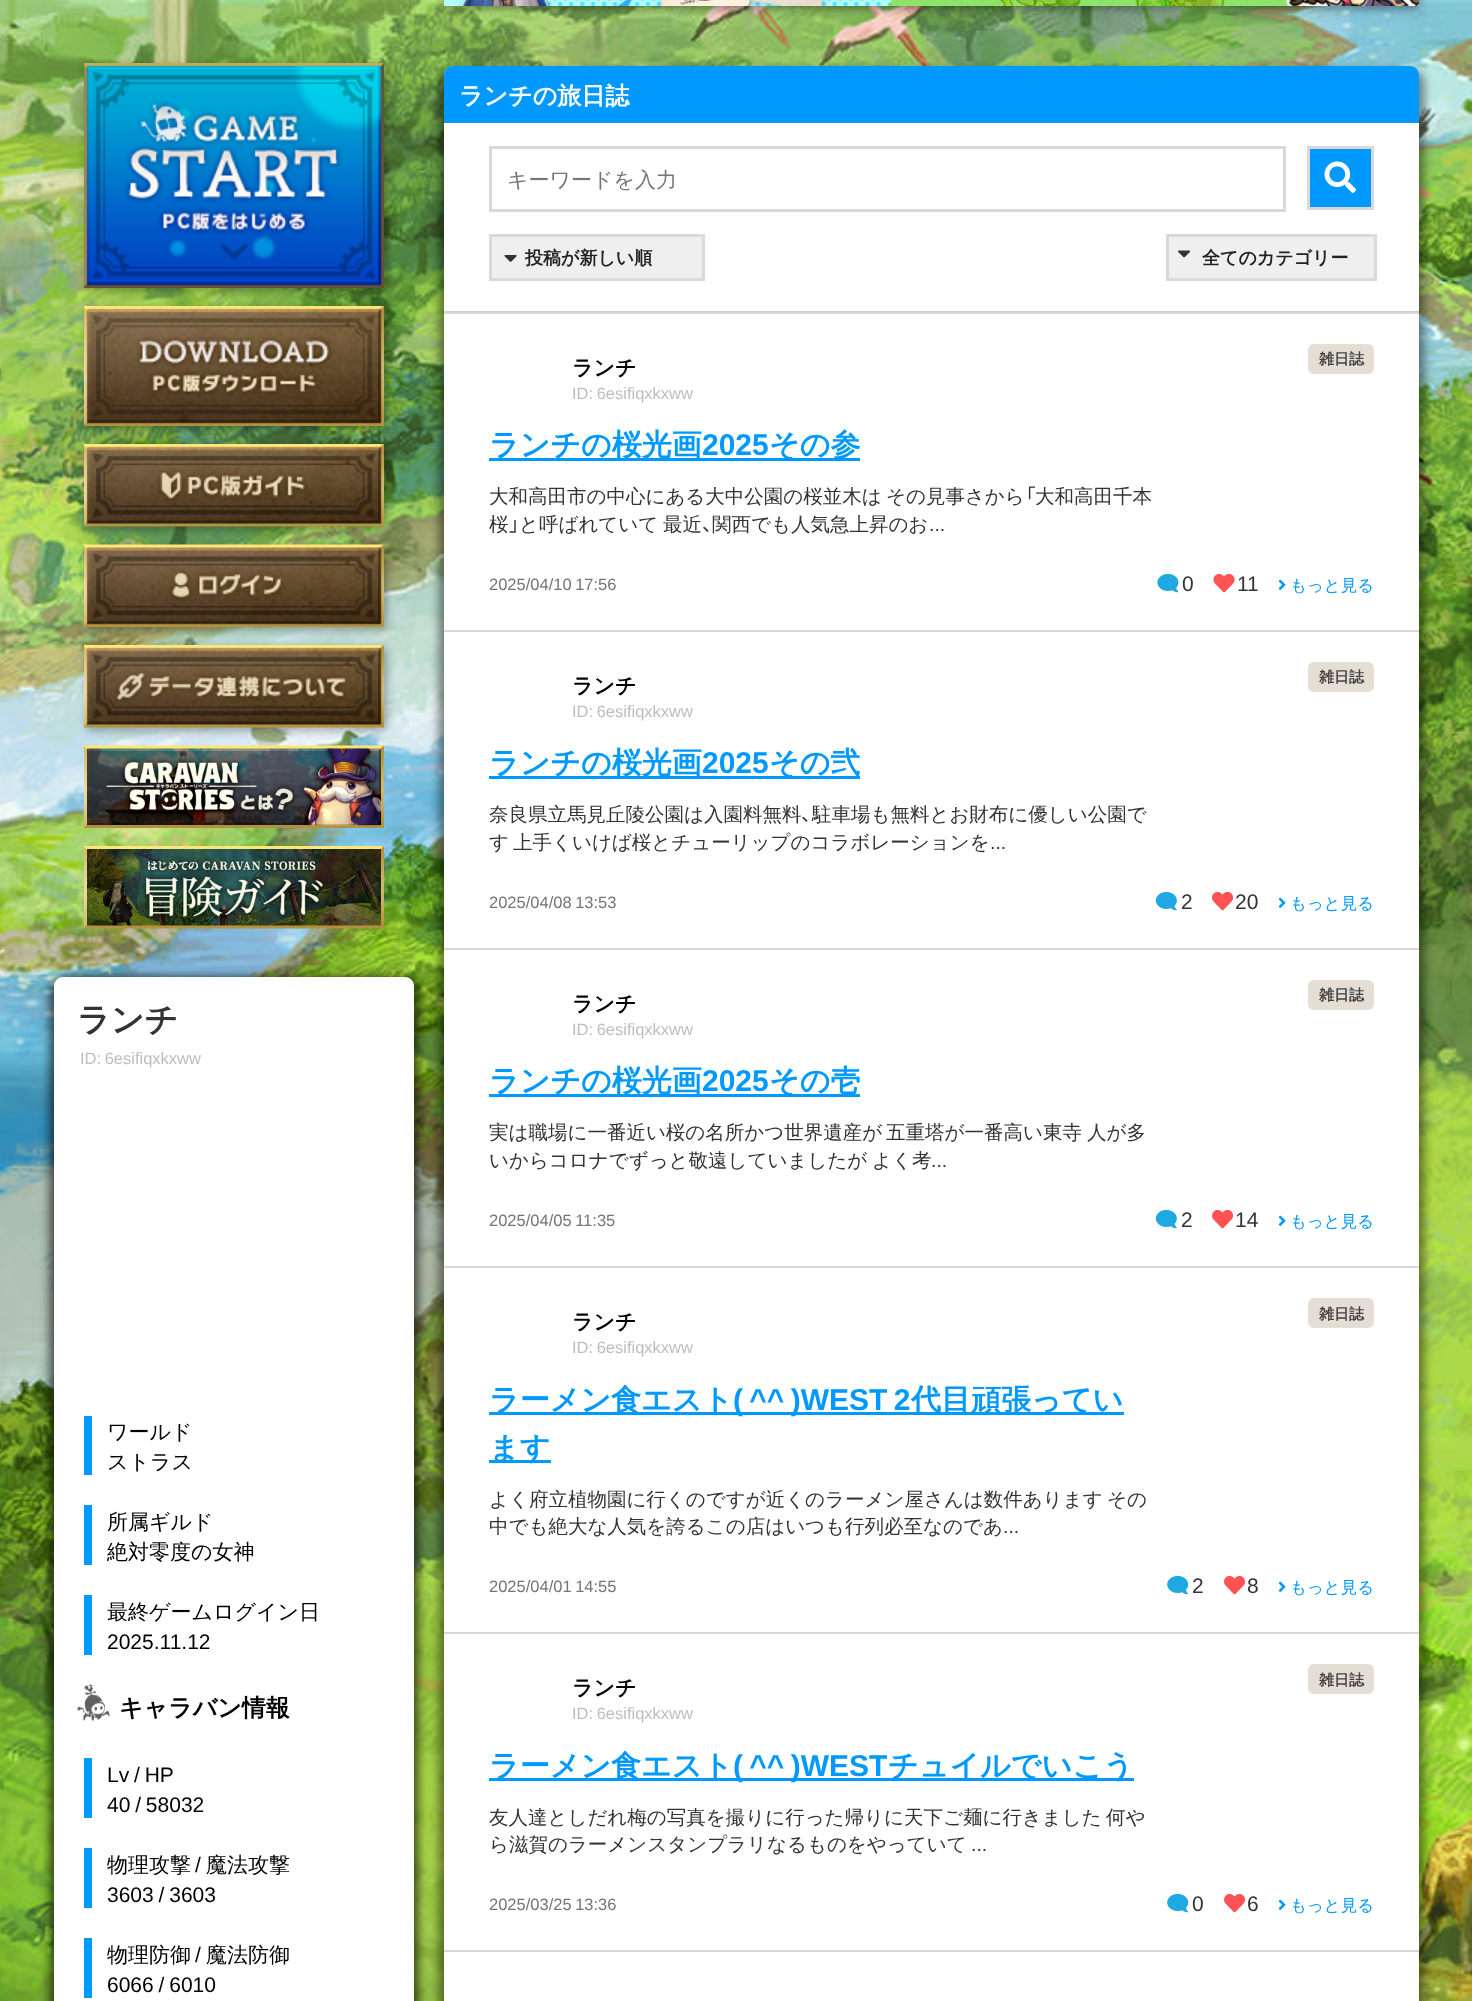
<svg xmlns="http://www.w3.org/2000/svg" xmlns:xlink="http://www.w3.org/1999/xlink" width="1472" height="2001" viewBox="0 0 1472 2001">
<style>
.cls-1{font:bold 33px WenQuanYi Zen Hei;fill:#333333}
.cls-2{font:16.5px Liberation Sans;fill:#bdbdbd}
.cls-3{font:500 21px WenQuanYi Zen Hei;fill:#000000}
.cls-4{font:21px Liberation Sans;fill:#000000}
.cls-5{font:bold 24px WenQuanYi Zen Hei;fill:#000000}
.cls-6{font:bold 24px WenQuanYi Zen Hei;fill:#ffffff}
.cls-7{font:500 21px WenQuanYi Zen Hei;fill:#757575}
.cls-8{font:bold 18px WenQuanYi Zen Hei;fill:#222222}
.cls-9{font:bold 15px WenQuanYi Zen Hei;fill:#444444}
.cls-10{font:bold 21px WenQuanYi Zen Hei;fill:#000000}
.cls-11{font:bold 30px WenQuanYi Zen Hei;fill:#0099ff}
.cls-12{font:bold 30px Liberation Sans;fill:#0099ff}
.cls-13{font:500 19.5px WenQuanYi Zen Hei;fill:#333333}
.cls-14{font:19.5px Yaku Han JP;fill:#333333}
.cls-15{font:19.5px Liberation Sans;fill:#333333}
.cls-16{font:16.5px Liberation Sans;fill:#757575}
.cls-17{font:21px Liberation Sans;fill:#333333}
.cls-18{font:500 16.5px WenQuanYi Zen Hei;fill:#0099ff}
</style>
<rect width="100%" height="100%" fill="#ffffff"/>
<image xlink:href="image0.png" x="0" y="0" width="1472" height="2001"/>
<rect fill="#000000" fill-opacity="0.4" filter="blur(4.5px)" x="444" y="-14" width="975" height="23"/>
<image xlink:href="image1.png" x="444" y="0" width="975" height="6"/>
<rect fill="#000000" fill-opacity="0.3" filter="blur(5px)" x="87" y="66" width="300" height="225"/>
<image xlink:href="image2.png" x="84" y="63" width="300" height="225"/>
<rect fill="#000000" fill-opacity="0.3" filter="blur(5px)" x="87" y="309" width="300" height="120"/>
<image xlink:href="image3.png" x="84" y="306" width="300" height="120"/>
<rect fill="#000000" fill-opacity="0.3" filter="blur(5px)" x="87" y="447" width="300" height="83"/>
<image xlink:href="image4.png" x="84" y="444" width="300" height="83"/>
<rect fill="#000000" fill-opacity="0.3" filter="blur(5px)" x="87" y="548" width="300" height="82"/>
<image xlink:href="image5.png" x="84" y="544" width="300" height="83"/>
<rect fill="#000000" fill-opacity="0.3" filter="blur(5px)" x="87" y="648" width="300" height="83"/>
<image xlink:href="image6.png" x="84" y="645" width="300" height="83"/>
<image xlink:href="image7.png" x="84" y="745" width="300" height="83"/>
<image xlink:href="image8.png" x="84" y="846" width="300" height="83"/>
<rect fill="#000000" fill-opacity="0.4" filter="blur(4.5px)" x="54" y="974" width="360" height="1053" rx="12"/>
<rect fill="#000000" fill-opacity="0.4" filter="blur(4.5px)" x="48" y="981" width="360" height="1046" rx="12"/>
<rect fill="#000000" fill-opacity="0.4" filter="blur(4.5px)" x="60" y="983" width="360" height="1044" rx="12"/>
<path fill="#ffffff" d="M63 977H405C410 977 414 981 414 986V2001C414 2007.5 408.5 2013 402 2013H66C59.5 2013 54 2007.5 54 2001V986C54 981 58 977 63 977Z"/>
<rect fill="#0099ff" x="84" y="1416" width="8" height="59"/>
<rect fill="#0099ff" x="84" y="1505" width="8" height="60"/>
<rect fill="#0099ff" x="84" y="1595" width="8" height="60"/>
<image xlink:href="image9.png" x="77" y="1684" width="33" height="37"/>
<rect fill="#0099ff" x="84" y="1758" width="8" height="60"/>
<rect fill="#0099ff" x="84" y="1848" width="8" height="60"/>
<rect fill="#0099ff" x="84" y="1938" width="8" height="60"/>
<rect fill="#000000" fill-opacity="0.4" filter="blur(4.5px)" x="438" y="71" width="975" height="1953" rx="9"/>
<rect fill="#000000" fill-opacity="0.4" filter="blur(4.5px)" x="450" y="72" width="975" height="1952" rx="9"/>
<rect fill="#ffffff" x="444" y="66" width="975" height="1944" rx="9"/>
<path fill="#0099ff" d="M453 66H1410C1415 66 1419 70 1419 75V123H444V75C444 70 448 66 453 66Z"/>
<rect fill="none" stroke="#d9d9d9" stroke-width="3" x="490.5" y="147.5" width="794" height="63"/>
<rect fill="#0099ff" stroke="#d9d9d9" stroke-width="3" x="1308.5" y="147.5" width="64" height="61"/>
<image xlink:href="image10.png" x="1324" y="161" width="32" height="32"/>
<rect fill="#efefef" stroke="#d9d9d9" stroke-width="3" x="490.5" y="235.5" width="213" height="44"/>
<image xlink:href="image11.png" x="504" y="255" width="13" height="7"/>
<rect fill="#efefef" stroke="#d9d9d9" stroke-width="3" x="1167.5" y="235.5" width="208" height="44"/>
<image xlink:href="image12.png" x="1178" y="250" width="13" height="8"/>
<rect fill="#cccccc" x="444" y="311" width="975" height="1"/>
<rect fill="#d9d9d9" x="444" y="312" width="975" height="2"/>
<rect fill="#e4ded5" x="1308" y="344" width="66" height="30" rx="6"/>
<rect fill="#0099ff" x="489" y="458" width="371" height="3"/>
<image xlink:href="image13.png" x="1157" y="573" width="22" height="20"/>
<image xlink:href="image14.png" x="1213" y="573" width="22" height="20"/>
<image xlink:href="image15.png" x="1278" y="579" width="8" height="11"/>
<rect fill="#d9d9d9" x="444" y="630" width="975" height="2"/>
<rect fill="#e4ded5" x="1308" y="662" width="66" height="30" rx="6"/>
<rect fill="#0099ff" x="489" y="776" width="371" height="3"/>
<image xlink:href="image16.png" x="1155" y="891" width="22" height="20"/>
<image xlink:href="image17.png" x="1212" y="891" width="21" height="20"/>
<image xlink:href="image15.png" x="1278" y="897" width="8" height="11"/>
<rect fill="#d9d9d9" x="444" y="948" width="975" height="2"/>
<rect fill="#e4ded5" x="1308" y="980" width="66" height="30" rx="6"/>
<rect fill="#0099ff" x="489" y="1094" width="371" height="3"/>
<image xlink:href="image16.png" x="1155" y="1209" width="22" height="20"/>
<image xlink:href="image17.png" x="1212" y="1209" width="21" height="20"/>
<image xlink:href="image15.png" x="1278" y="1215" width="8" height="11"/>
<rect fill="#d9d9d9" x="444" y="1266" width="975" height="2"/>
<rect fill="#e4ded5" x="1308" y="1298" width="66" height="30" rx="6"/>
<rect fill="#0099ff" x="489" y="1412" width="635" height="3"/>
<rect fill="#0099ff" x="489" y="1460" width="62" height="3"/>
<image xlink:href="image18.png" x="1167" y="1575" width="22" height="20"/>
<image xlink:href="image17.png" x="1224" y="1575" width="21" height="20"/>
<image xlink:href="image15.png" x="1278" y="1581" width="8" height="11"/>
<rect fill="#d9d9d9" x="444" y="1632" width="975" height="2"/>
<rect fill="#e4ded5" x="1308" y="1664" width="66" height="30" rx="6"/>
<rect fill="#0099ff" x="489" y="1778" width="645" height="3"/>
<image xlink:href="image18.png" x="1167" y="1893" width="22" height="20"/>
<image xlink:href="image17.png" x="1224" y="1893" width="21" height="20"/>
<image xlink:href="image15.png" x="1278" y="1899" width="8" height="11"/>
<rect fill="#d9d9d9" x="444" y="1950" width="975" height="2"/>
<text class="cls-1" x="77" y="1031">ランチ</text>
<text class="cls-2" x="80" y="1064" word-spacing="-1">ID: 6esifiqxkxww</text>
<text class="cls-3"><tspan x="107" y="1439">ワールド</tspan><tspan x="107" y="1469">ストラス</tspan></text>
<text class="cls-3"><tspan x="107" y="1529">所属ギルド</tspan><tspan x="107" y="1559">絶対零度の女神</tspan></text>
<text class="cls-3" x="107" y="1619">最終ゲームログイン日</text>
<text class="cls-4" x="107" y="1649">2025.11.12</text>
<text class="cls-5" x="119" y="1716">キャラバン情報</text>
<text class="cls-4"><tspan x="107" y="1782" word-spacing="-1">Lv / HP</tspan><tspan x="107" y="1812" word-spacing="-1">40 / 58032</tspan></text>
<text class="cls-3" x="107" y="1872">物理攻撃</text>
<text class="cls-4" x="195" y="1872">/</text>
<text class="cls-3" x="206" y="1872">魔法攻撃</text>
<text class="cls-4" x="107" y="1902" word-spacing="-1">3603 / 3603</text>
<text class="cls-3" x="107" y="1962">物理防御</text>
<text class="cls-4" x="195" y="1962">/</text>
<text class="cls-3" x="206" y="1962">魔法防御</text>
<text class="cls-4" x="107" y="1992" word-spacing="-1">6066 / 6010</text>
<text class="cls-6" x="459" y="104">ランチの旅日誌</text>
<text class="cls-7" x="507" y="187">キーワードを入力</text>
<text class="cls-8" x="525" y="264">投稿が新しい順</text>
<text class="cls-8" x="1202" y="264">全てのカテゴリー</text>
<text class="cls-9" x="1319" y="364">雑日誌</text>
<text class="cls-10" x="572" y="375">ランチ</text>
<text class="cls-2" x="572" y="399" word-spacing="-1">ID: 6esifiqxkxww</text>
<text class="cls-11" x="489" y="455">ランチの桜光画</text>
<text class="cls-12" x="702" y="455">2025</text>
<text class="cls-11" x="769" y="455">その参</text>
<text class="cls-13" x="489" y="503">大和高田市の中心にある大中公園の桜並木は</text>
<text class="cls-13" x="886" y="503">その見事さから</text>
<text class="cls-14" x="1025" y="503">「</text>
<text class="cls-13" x="1035" y="503">大和高田千本</text>
<text class="cls-13" x="489" y="531">桜</text>
<text class="cls-14" x="509" y="531">」</text>
<text class="cls-13" x="519" y="531">と呼ばれていて</text>
<text class="cls-13" x="663" y="531">最近</text>
<text class="cls-14" x="702" y="531">、</text>
<text class="cls-13" x="712" y="531">関西でも人気急上昇のお</text>
<text class="cls-15" x="929" y="531">...</text>
<text class="cls-16" x="489" y="590" word-spacing="-1">2025/04/10 17:56</text>
<text class="cls-17" x="1182" y="591">0</text>
<text class="cls-17" x="1237" y="591">11</text>
<text class="cls-18" x="1290" y="591">もっと見る</text>
<text class="cls-9" x="1319" y="682">雑日誌</text>
<text class="cls-10" x="572" y="693">ランチ</text>
<text class="cls-2" x="572" y="717" word-spacing="-1">ID: 6esifiqxkxww</text>
<text class="cls-11" x="489" y="773">ランチの桜光画</text>
<text class="cls-12" x="702" y="773">2025</text>
<text class="cls-11" x="769" y="773">その弐</text>
<text class="cls-13" x="489" y="821">奈良県立馬見丘陵公園は入園料無料</text>
<text class="cls-14" x="801" y="821">、</text>
<text class="cls-13" x="812" y="821">駐車場も無料とお財布に優しい公園で</text>
<text class="cls-13" x="489" y="849">す</text>
<text class="cls-13" x="513" y="849">上手くいけば桜とチューリップのコラボレーションを</text>
<text class="cls-15" x="990" y="849">...</text>
<text class="cls-16" x="489" y="908" word-spacing="-1">2025/04/08 13:53</text>
<text class="cls-17" x="1181" y="909">2</text>
<text class="cls-17" x="1235" y="909">20</text>
<text class="cls-18" x="1290" y="909">もっと見る</text>
<text class="cls-9" x="1319" y="1000">雑日誌</text>
<text class="cls-10" x="572" y="1011">ランチ</text>
<text class="cls-2" x="572" y="1035" word-spacing="-1">ID: 6esifiqxkxww</text>
<text class="cls-11" x="489" y="1091">ランチの桜光画</text>
<text class="cls-12" x="702" y="1091">2025</text>
<text class="cls-11" x="769" y="1091">その壱</text>
<text class="cls-13" x="489" y="1139">実は職場に一番近い桜の名所かつ世界遺産が</text>
<text class="cls-13" x="886" y="1139">五重塔が一番高い東寺</text>
<text class="cls-13" x="1087" y="1139">人が多</text>
<text class="cls-13" x="489" y="1167">いからコロナでずっと敬遠していましたが</text>
<text class="cls-13" x="872" y="1167">よく考</text>
<text class="cls-15" x="931" y="1167">...</text>
<text class="cls-16" x="489" y="1226" word-spacing="-1">2025/04/05 11:35</text>
<text class="cls-17" x="1181" y="1227">2</text>
<text class="cls-17" x="1235" y="1227">14</text>
<text class="cls-18" x="1290" y="1227">もっと見る</text>
<text class="cls-10" x="572" y="1329">ランチ</text>
<text class="cls-2" x="572" y="1353" word-spacing="-1">ID: 6esifiqxkxww</text>
<text class="cls-9" x="1319" y="1319">雑日誌</text>
<text class="cls-11" x="489" y="1410">ラーメン食エスト</text>
<text class="cls-12" x="733" y="1410" word-spacing="-2">( ^^ )WEST 2</text>
<text class="cls-11" x="911" y="1410">代目頑張ってい</text>
<text class="cls-11" x="489" y="1458">ます</text>
<text class="cls-13" x="489" y="1506">よく府立植物園に行くのですが近くのラーメン屋さんは数件あります</text>
<text class="cls-13" x="1107" y="1506">その</text>
<text class="cls-13" x="489" y="1533">中でも絶大な人気を誇るこの店はいつも行列必至なのであ</text>
<text class="cls-15" x="1003" y="1533">...</text>
<text class="cls-16" x="489" y="1592" word-spacing="-1">2025/04/01 14:55</text>
<text class="cls-17" x="1192" y="1593">2</text>
<text class="cls-17" x="1247" y="1593">8</text>
<text class="cls-18" x="1290" y="1593">もっと見る</text>
<text class="cls-10" x="572" y="1695">ランチ</text>
<text class="cls-2" x="572" y="1719" word-spacing="-1">ID: 6esifiqxkxww</text>
<text class="cls-9" x="1319" y="1685">雑日誌</text>
<text class="cls-11" x="489" y="1776">ラーメン食エスト</text>
<text class="cls-12" x="733" y="1776" word-spacing="-2">( ^^ )WEST</text>
<text class="cls-11" x="888" y="1776">チュイルでいこう</text>
<text class="cls-13" x="489" y="1824">友人達としだれ梅の写真を撮りに行った帰りに天下ご麺に行きました</text>
<text class="cls-13" x="1106" y="1824">何や</text>
<text class="cls-13" x="489" y="1851">ら滋賀のラーメンスタンプラリなるものをやっていて</text>
<text class="cls-15" x="971" y="1851">...</text>
<text class="cls-16" x="489" y="1910" word-spacing="-1">2025/03/25 13:36</text>
<text class="cls-17" x="1192" y="1911">0</text>
<text class="cls-17" x="1247" y="1911">6</text>
<text class="cls-18" x="1290" y="1911">もっと見る</text>
</svg>
